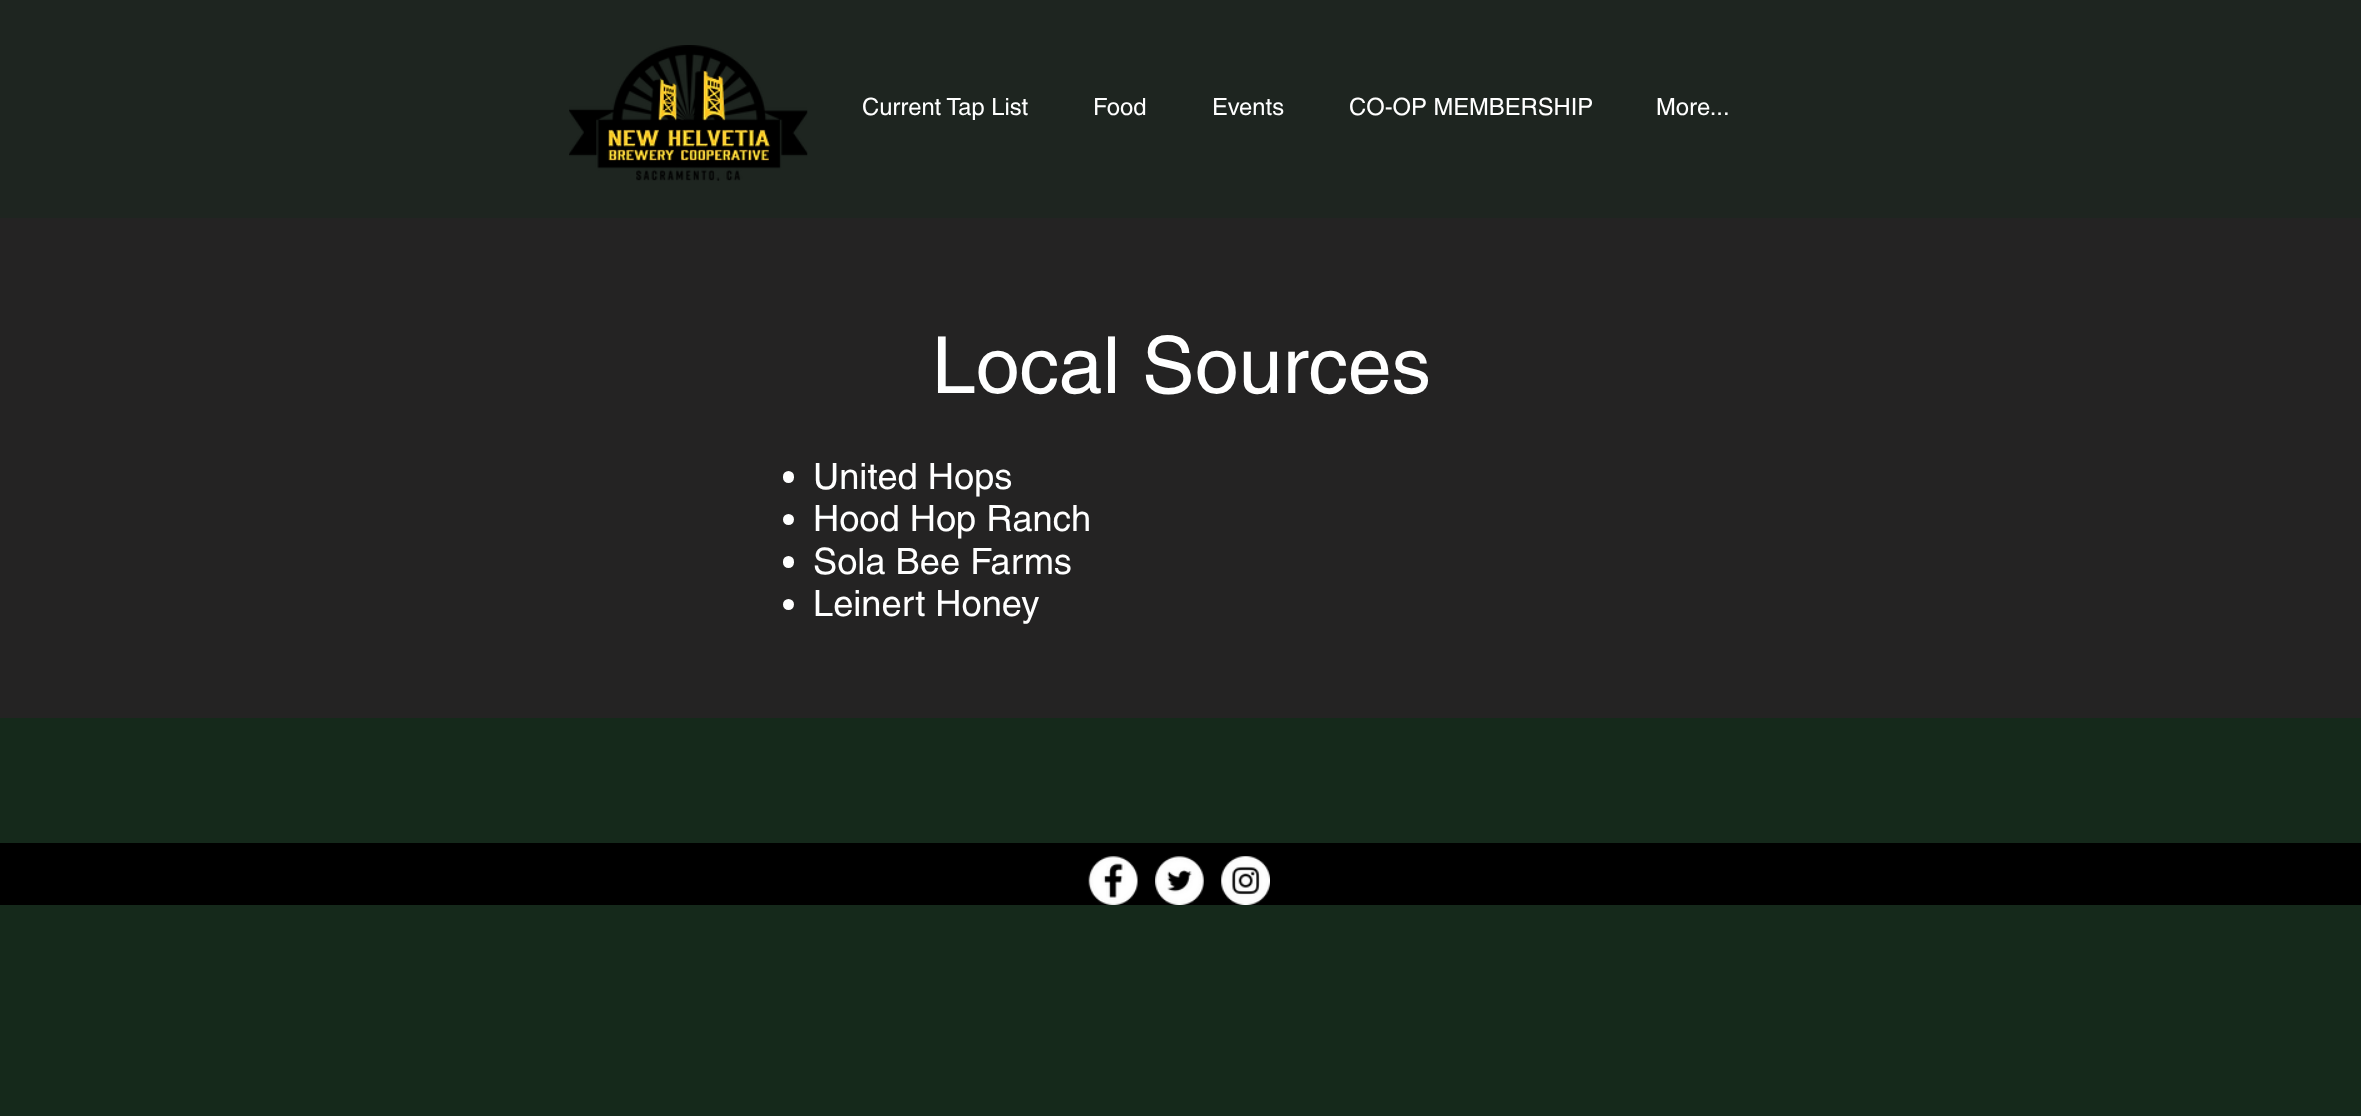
<svg xmlns="http://www.w3.org/2000/svg" xmlns:xlink="http://www.w3.org/1999/xlink" width="2361" height="1116" viewBox="0 0 2361 1116">
<style>
.cls-1{font:23.75px helvetica;fill:#ffffff}
.cls-2{font:78.75px helvetica;fill:#ffffff}
.cls-3{font:36.25px helvetica;fill:#ffffff}
</style>
<defs>
<clipPath id="clip1"><path d="M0 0H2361V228H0ZM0 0H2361V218H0Z" clip-rule="evenodd"/></clipPath>
</defs>
<rect width="100%" height="100%" fill="#15291b"/>
<g clip-path="url(#clip1)">
<rect fill="#000000" fill-opacity="0.6" filter="blur(2.5px)" x="0" y="1" width="2361" height="218"/>
</g>
<rect fill="#242323" fill-opacity="0.62" x="0" y="0" width="2361" height="218"/>
<image xlink:href="image0.png" x="569" y="45" width="239" height="136"/>
<rect fill="#242323" x="0" y="218" width="2361" height="500"/>
<rect fill="#ffffff" x="783" y="471" width="11" height="12" rx="5.5"/>
<circle fill="#ffffff" cx="788.5" cy="519.5" r="5.5"/>
<rect fill="#ffffff" x="783" y="556" width="11" height="12" rx="5.5"/>
<circle fill="#ffffff" cx="788.5" cy="604.5" r="5.5"/>
<rect fill="#000000" x="0" y="843" width="2361" height="62"/>
<image xlink:href="image1.png" x="1088" y="856" width="50" height="49"/>
<image xlink:href="image2.png" x="1155" y="856" width="49" height="49"/>
<image xlink:href="image3.png" x="1221" y="856" width="49" height="49"/>
<text class="cls-1" x="862" y="115">Current Tap List</text>
<text class="cls-1" x="1093" y="115">Food</text>
<text class="cls-1" x="1212" y="115">Events</text>
<text class="cls-1" x="1349" y="115">CO-OP MEMBERSHIP</text>
<text class="cls-1" x="1656" y="115">More...</text>
<text class="cls-2" x="932" y="393">Local Sources</text>
<text class="cls-3"><tspan x="813" y="489">United Hops</tspan><tspan x="813" y="531">Hood Hop Ranch</tspan><tspan x="813" y="574">Sola Bee Farms</tspan><tspan x="813" y="616">Leinert Honey</tspan></text>
</svg>
